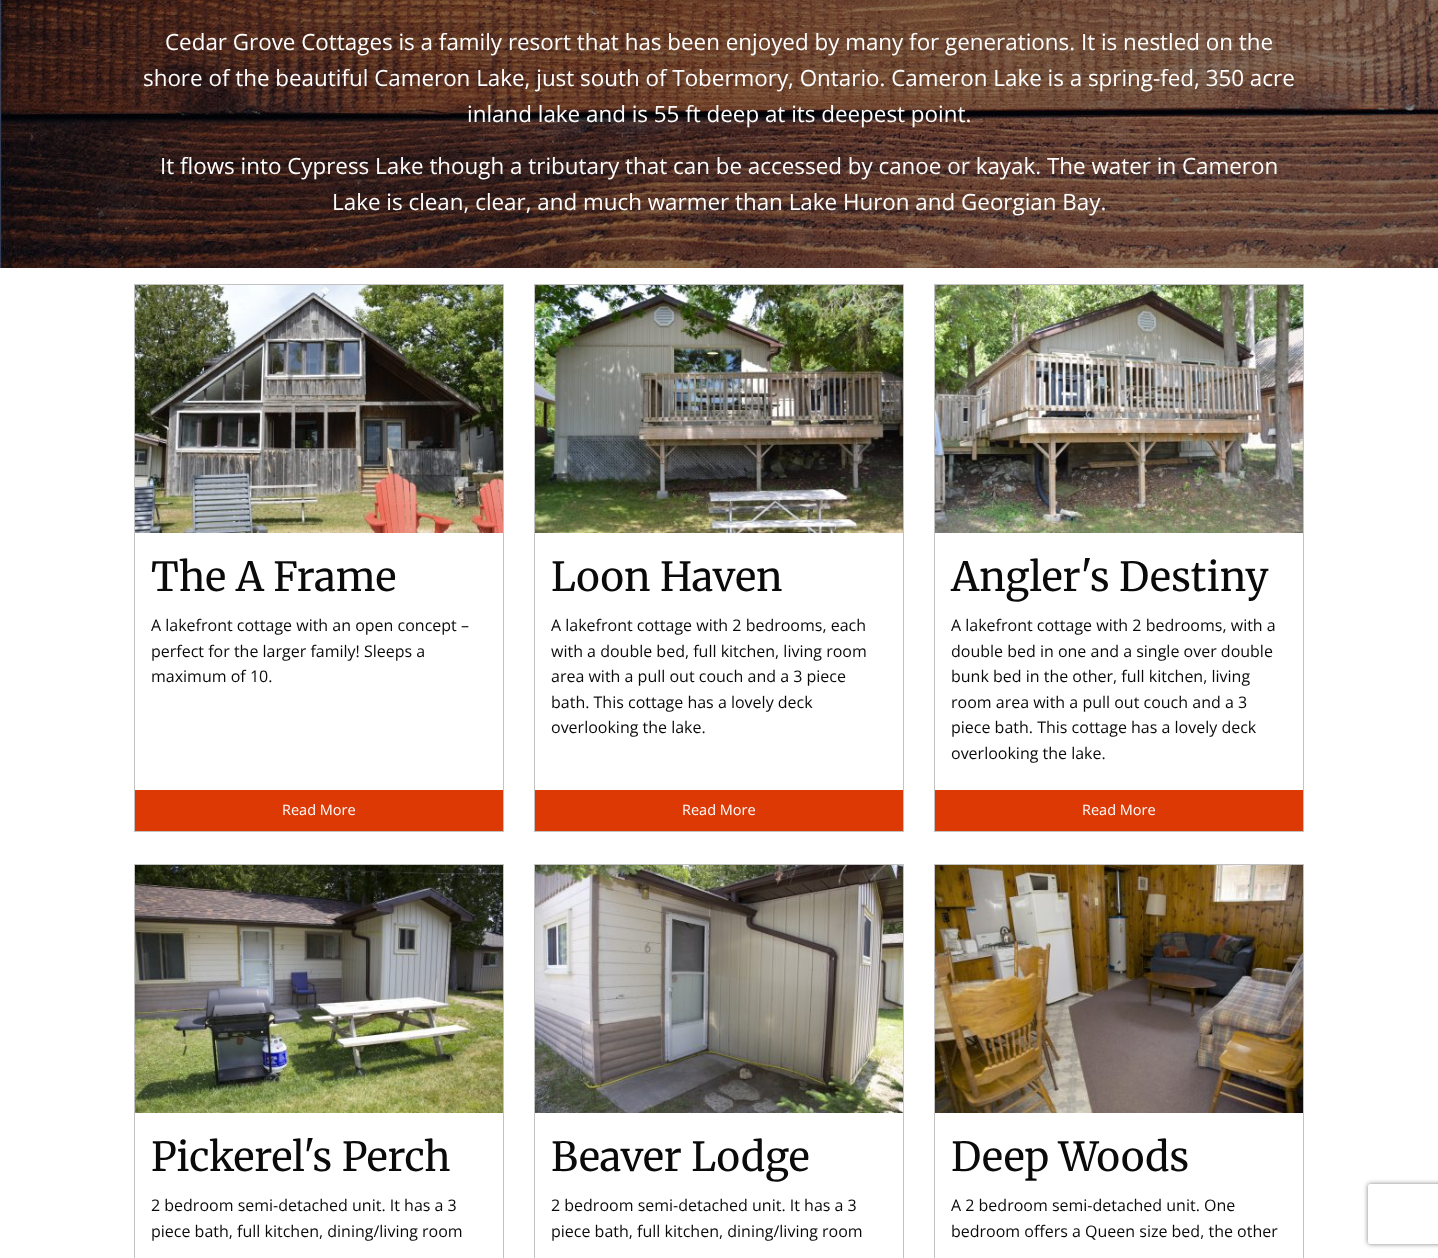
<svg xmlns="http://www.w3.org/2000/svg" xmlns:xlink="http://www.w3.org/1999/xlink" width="1438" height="1258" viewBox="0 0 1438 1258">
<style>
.cls-1{font:22.4px Open Sans;fill:#fefefe}
.cls-2{font:300 40px Merriweather;fill:#0a0a0a}
.cls-3{font:16px Open Sans;fill:#0a0a0a}
.cls-4{font:14.5px Open Sans;fill:#fefefe}
</style>
<defs>
<clipPath id="clip1"><path d="M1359 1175H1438V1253H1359ZM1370 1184H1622C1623 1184 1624 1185 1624 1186V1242C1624 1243 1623 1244 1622 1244H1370C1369 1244 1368 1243 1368 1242V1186C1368 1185 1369 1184 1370 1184Z" clip-rule="evenodd"/></clipPath>
</defs>
<rect width="100%" height="100%" fill="#ffffff"/>
<image xlink:href="image0.png" x="0" y="0" width="1438" height="268"/>
<rect fill="none" stroke="#c2c2c2" x="134.5" y="284.5" width="369" height="547"/>
<image xlink:href="image1.png" x="135" y="285" width="368" height="248"/>
<rect fill="#dd3905" x="135" y="790" width="368" height="41"/>
<rect fill="none" stroke="#c2c2c2" x="534.5" y="284.5" width="369" height="547"/>
<image xlink:href="image2.png" x="535" y="285" width="368" height="248"/>
<rect fill="#dd3905" x="535" y="790" width="368" height="41"/>
<rect fill="none" stroke="#c2c2c2" x="934.5" y="284.5" width="369" height="547"/>
<image xlink:href="image3.png" x="935" y="285" width="368" height="248"/>
<rect fill="#dd3905" x="935" y="790" width="368" height="41"/>
<rect fill="none" stroke="#c2c2c2" x="134.5" y="864.5" width="369" height="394"/>
<image xlink:href="image4.png" x="135" y="865" width="368" height="248"/>
<rect fill="none" stroke="#c2c2c2" x="534.5" y="864.5" width="369" height="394"/>
<image xlink:href="image5.png" x="535" y="865" width="368" height="248"/>
<rect fill="none" stroke="#c2c2c2" x="934.5" y="864.5" width="369" height="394"/>
<image xlink:href="image6.png" x="935" y="865" width="368" height="248"/>
<g clip-path="url(#clip1)">
<rect fill="#808080" filter="blur(2.5px)" x="1368" y="1184" width="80" height="60" rx="2"/>
</g>
<text class="cls-1" x="165" y="50">Cedar Grove Cottages is a family resort that has been enjoyed by many for generations. It is nestled on the</text>
<text class="cls-1" x="143" y="86">shore of the beautiful Cameron Lake, just south of Tobermory, Ontario. Cameron Lake is a spring-fed, 350 acre</text>
<text class="cls-1" x="467" y="122">inland lake and is 55 ft deep at its deepest point.</text>
<text class="cls-1" x="160" y="174">It flows into Cypress Lake though a tributary that can be accessed by canoe or kayak. The water in Cameron</text>
<text class="cls-1" x="332" y="210">Lake is clean, clear, and much warmer than Lake Huron and Georgian Bay.</text>
<text class="cls-2" x="151" y="591">The A Frame</text>
<text class="cls-3"><tspan x="151" y="631">A lakefront cottage with an open concept –</tspan><tspan x="151" y="657">perfect for the larger family! Sleeps a</tspan><tspan x="151" y="682">maximum of 10.</tspan></text>
<text class="cls-4" x="282" y="815">Read More</text>
<text class="cls-2" x="551" y="591">Loon Haven</text>
<text class="cls-3"><tspan x="551" y="631">A lakefront cottage with 2 bedrooms, each</tspan><tspan x="551" y="657">with a double bed, full kitchen, living room</tspan><tspan x="551" y="682">area with a pull out couch and a 3 piece</tspan><tspan x="551" y="708">bath. This cottage has a lovely deck</tspan><tspan x="551" y="733">overlooking the lake.</tspan></text>
<text class="cls-4" x="682" y="815">Read More</text>
<text class="cls-2" x="951" y="591">Angler's Destiny</text>
<text class="cls-3"><tspan x="951" y="631">A lakefront cottage with 2 bedrooms, with a</tspan><tspan x="951" y="657">double bed in one and a single over double</tspan><tspan x="951" y="682">bunk bed in the other, full kitchen, living</tspan><tspan x="951" y="708">room area with a pull out couch and a 3</tspan><tspan x="951" y="733">piece bath. This cottage has a lovely deck</tspan><tspan x="951" y="759">overlooking the lake.</tspan></text>
<text class="cls-4" x="1082" y="815">Read More</text>
<text class="cls-2" x="151" y="1171">Pickerel's Perch</text>
<text class="cls-3"><tspan x="151" y="1211">2 bedroom semi-detached unit. It has a 3</tspan><tspan x="151" y="1237">piece bath, full kitchen, dining/living room</tspan></text>
<text class="cls-2" x="551" y="1171">Beaver Lodge</text>
<text class="cls-3"><tspan x="551" y="1211">2 bedroom semi-detached unit. It has a 3</tspan><tspan x="551" y="1237">piece bath, full kitchen, dining/living room</tspan></text>
<text class="cls-2" x="951" y="1171">Deep Woods</text>
<text class="cls-3"><tspan x="951" y="1211">A 2 bedroom semi-detached unit. One</tspan><tspan x="951" y="1237">bedroom offers a Queen size bed, the other</tspan></text>
</svg>
